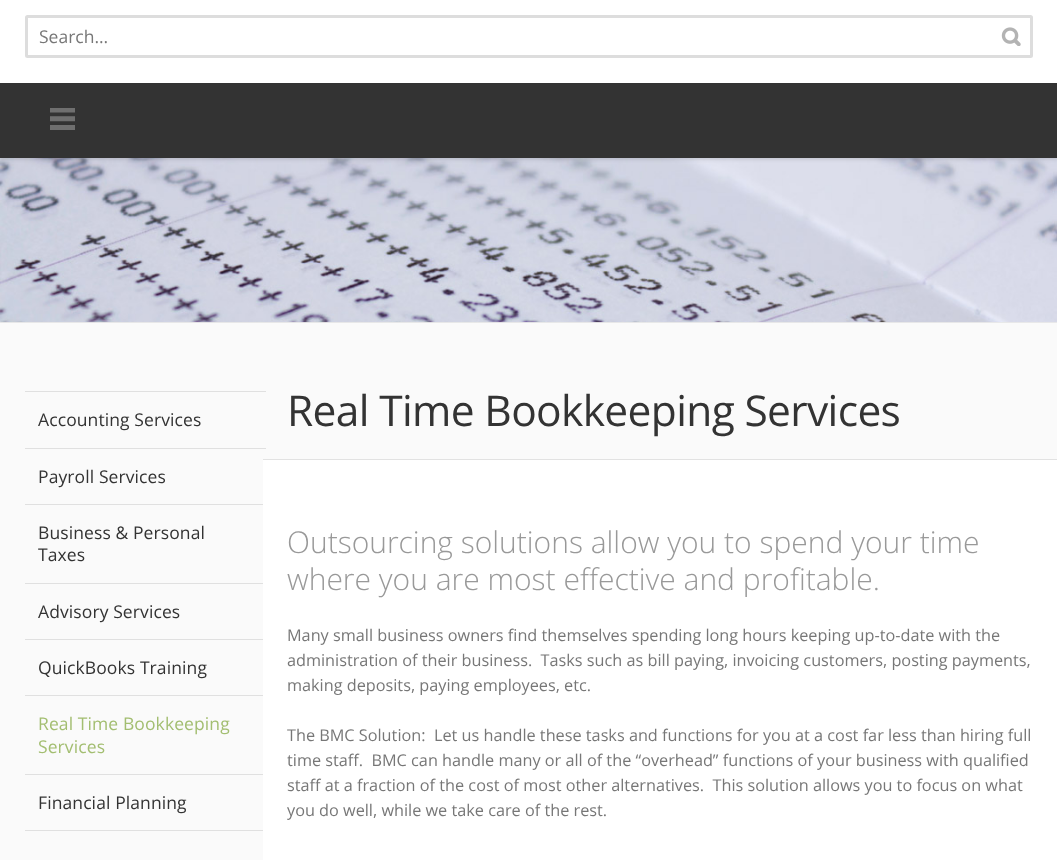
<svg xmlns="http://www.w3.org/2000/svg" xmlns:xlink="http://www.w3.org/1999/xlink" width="1057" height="860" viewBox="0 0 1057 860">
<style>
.cls-1{font:17.5px Open Sans;fill:#777777}
.cls-2{font:17.5px Open Sans;letter-spacing:0.1px;fill:#333333}
.cls-3{font:17.5px Open Sans;letter-spacing:0.1px;fill:#a3be71}
.cls-4{font:42.5px Open Sans;letter-spacing:-0.65px;fill:#333333}
.cls-5{font:300 30px Open Sans;fill:#999999}
.cls-6{font:16.25px Open Sans;fill:#777777}
</style>
<rect width="100%" height="100%" fill="#fafafa"/>
<rect fill="#e9e9e9" x="0" y="322" width="1057" height="1"/>
<image xlink:href="image2.png" x="0" y="158" width="1057" height="165"/>
<rect fill="#000000" fill-opacity="0.14" filter="blur(2px)" x="0" y="-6" width="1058" height="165"/>
<rect fill="#ffffff" x="0" y="0" width="1057" height="83"/>
<rect fill="none" stroke="#dddddd" stroke-width="3" x="26.5" y="16.5" width="1005" height="40" rx="1"/>
<image xlink:href="image0.png" x="1001" y="27" width="20" height="19"/>
<rect fill="#333333" x="0" y="83" width="1057" height="75"/>
<image xlink:href="image1.png" x="50" y="108" width="25" height="22"/>
<rect fill="#e0e0e0" x="25" y="391" width="241" height="1"/>
<rect fill="#e0e0e0" x="25" y="448" width="241" height="1"/>
<rect fill="#e0e0e0" x="25" y="504" width="241" height="1"/>
<rect fill="#e0e0e0" x="25" y="583" width="241" height="1"/>
<rect fill="#e0e0e0" x="25" y="639" width="241" height="1"/>
<rect fill="#e0e0e0" x="25" y="695" width="241" height="1"/>
<rect fill="#e0e0e0" x="25" y="774" width="241" height="1"/>
<rect fill="#e0e0e0" x="25" y="830" width="241" height="1"/>
<rect fill="#ffffff" x="263" y="460" width="794" height="400"/>
<rect fill="#e2e2e2" x="263" y="459" width="794" height="1"/>
<text class="cls-1" x="39" y="43">Search...</text>
<text class="cls-2" x="38" y="426">Accounting Services</text>
<text class="cls-2" x="38" y="483">Payroll Services</text>
<text class="cls-2"><tspan x="38" y="539">Business &amp; Personal</tspan><tspan x="38" y="561">Taxes</tspan></text>
<text class="cls-2" x="38" y="618">Advisory Services</text>
<text class="cls-2" x="38" y="674">QuickBooks Training</text>
<text class="cls-3"><tspan x="38" y="730">Real Time Bookkeeping</tspan><tspan x="38" y="753">Services</tspan></text>
<text class="cls-2" x="38" y="809">Financial Planning</text>
<text class="cls-4" x="287" y="426">Real Time Bookkeeping Services</text>
<text class="cls-5"><tspan x="287" y="553">Outsourcing solutions allow you to spend your time</tspan><tspan x="287" y="590">where you are most effective and profitable.</tspan></text>
<text class="cls-6" xml:space="preserve"><tspan x="287" y="641">Many small business owners find themselves spending long hours keeping up-to-date with the</tspan><tspan x="287" y="666">administration of their business.  Tasks such as bill paying, invoicing customers, posting payments,</tspan><tspan x="287" y="691">making deposits, paying employees, etc.</tspan></text>
<text class="cls-6" xml:space="preserve"><tspan x="287" y="741">The BMC Solution:  Let us handle these tasks and functions for you at a cost far less than hiring full</tspan><tspan x="287" y="766">time staff.  BMC can handle many or all of the “overhead” functions of your business with qualified</tspan><tspan x="287" y="791">staff at a fraction of the cost of most other alternatives.  This solution allows you to focus on what</tspan><tspan x="287" y="816">you do well, while we take care of the rest.</tspan></text>
</svg>
